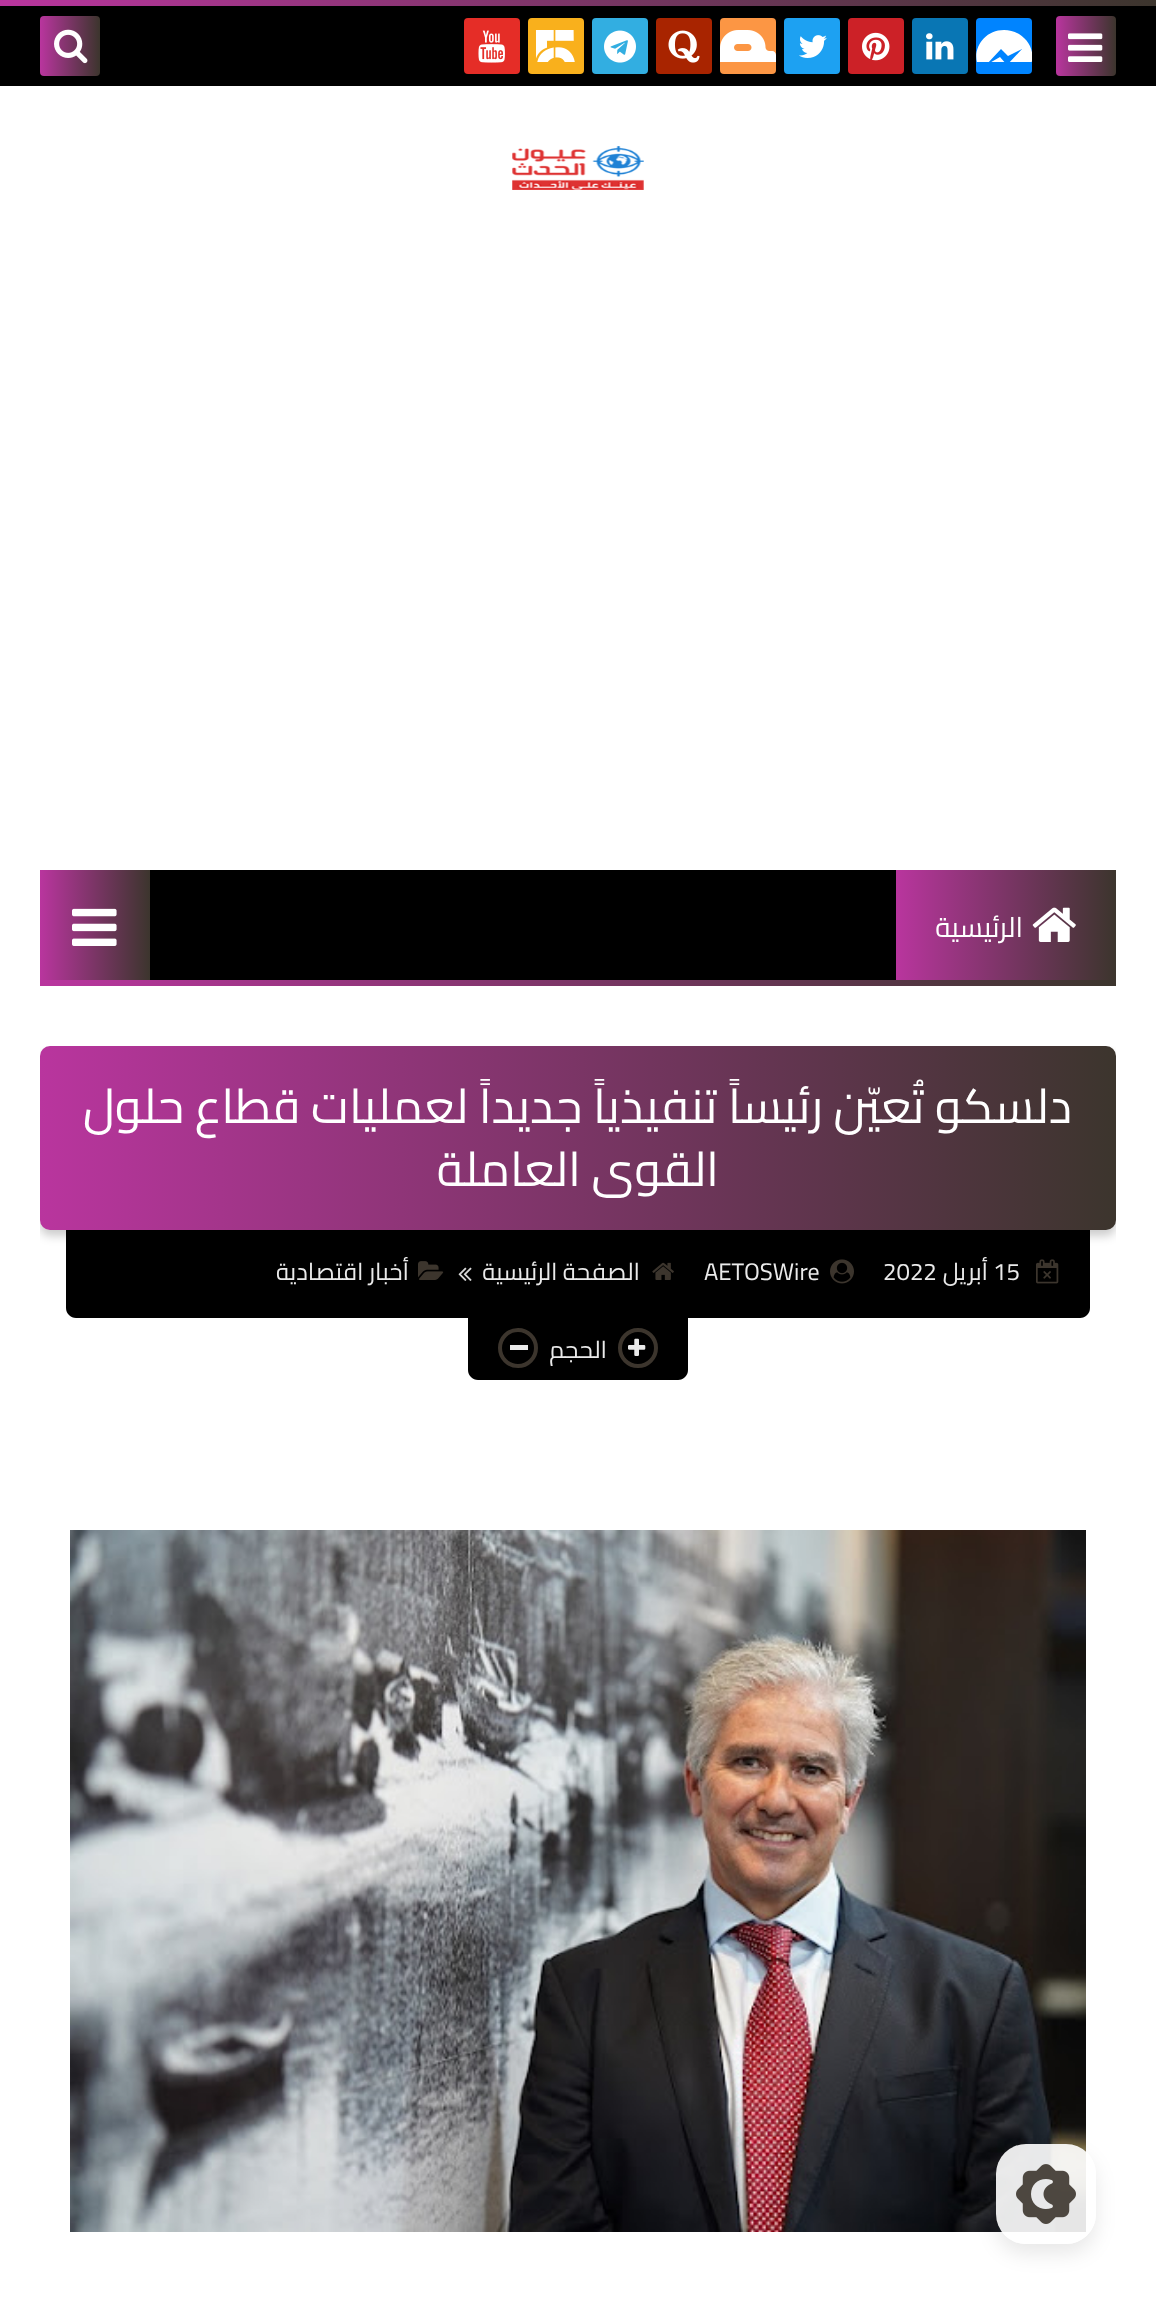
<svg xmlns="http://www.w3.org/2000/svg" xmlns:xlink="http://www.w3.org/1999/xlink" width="1156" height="2304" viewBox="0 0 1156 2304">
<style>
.cls-1{font:28px Cairo;direction:rtl;fill:#ffffff}
.cls-2{font:48px Cairo;direction:rtl;fill:#ffffff}
.cls-3{font:24px Cairo;fill:#eaeaea}
.cls-4{font:24px Cairo;direction:rtl;fill:#eaeaea}
</style>
<defs>
<linearGradient id="g1" gradientUnits="userSpaceOnUse" x1="1156" y1="3" x2="0" y2="3"><stop offset="0" stop-color="#3c352d"/><stop offset="1" stop-color="#b9359e"/></linearGradient>
<linearGradient id="g2" gradientUnits="userSpaceOnUse" x1="1116" y1="46" x2="1056" y2="46"><stop offset="0" stop-color="#3c352d"/><stop offset="1" stop-color="#b9359e"/></linearGradient>
<clipPath id="clip1"><rect x="976" y="30" width="56" height="32"/></clipPath>
<linearGradient id="g3" gradientUnits="userSpaceOnUse" x1="100" y1="46" x2="40" y2="46"><stop offset="0" stop-color="#3c352d"/><stop offset="1" stop-color="#b9359e"/></linearGradient>
<linearGradient id="g4" gradientUnits="userSpaceOnUse" x1="1116" y1="925" x2="896" y2="925"><stop offset="0" stop-color="#3c352d"/><stop offset="1" stop-color="#b9359e"/></linearGradient>
<linearGradient id="g5" gradientUnits="userSpaceOnUse" x1="150" y1="925" x2="40" y2="925"><stop offset="0" stop-color="#3c352d"/><stop offset="1" stop-color="#b9359e"/></linearGradient>
<linearGradient id="g6" gradientUnits="userSpaceOnUse" x1="1116" y1="983" x2="40" y2="983"><stop offset="0" stop-color="#3c352d"/><stop offset="1" stop-color="#b9359e"/></linearGradient>
<clipPath id="clip2"><rect x="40" y="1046" width="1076" height="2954"/></clipPath>
<linearGradient id="g7" gradientUnits="userSpaceOnUse" x1="1116" y1="1138" x2="40" y2="1138"><stop offset="0" stop-color="#3c352d"/><stop offset="1" stop-color="#b9359e"/></linearGradient>
<clipPath id="clip3"><path d="M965 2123H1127V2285H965ZM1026 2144H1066C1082.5 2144 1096 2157.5 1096 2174V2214C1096 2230.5 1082.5 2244 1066 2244H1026C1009.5 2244 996 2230.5 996 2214V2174C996 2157.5 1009.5 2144 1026 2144Z" clip-rule="evenodd"/></clipPath>
</defs>
<rect width="100%" height="100%" fill="#ffffff"/>
<rect fill="url(#g1)" x="0" y="0" width="1156" height="6"/>
<rect fill="#000000" x="0" y="6" width="1156" height="80"/>
<rect fill="url(#g2)" x="1056" y="16" width="60" height="60" rx="4"/>
<image xlink:href="image0.png" x="1068" y="33" width="35" height="29"/>
<rect fill="#0084ff" x="976" y="18" width="56" height="56" rx="4"/>
<g clip-path="url(#clip1)">
<path fill="#ffffff" fill-rule="evenodd" d="M1004 30C1027 30 1043 57 1024 74H984C967 58 980 30 1004 30ZM1007 65L1022 49L1008 56L1001 49L986 65L1000 57Z"/>
</g>
<rect fill="#0976b4" x="912" y="18" width="56" height="56" rx="4"/>
<image xlink:href="image1.png" x="926" y="33" width="28" height="27"/>
<rect fill="#cc2127" x="848" y="18" width="56" height="56" rx="4"/>
<image xlink:href="image2.png" x="862" y="32" width="28" height="29"/>
<rect fill="#1da1f2" x="784" y="18" width="56" height="56" rx="4"/>
<image xlink:href="image3.png" x="799" y="35" width="28" height="23"/>
<rect fill="#fc9644" x="720" y="18" width="56" height="56" rx="4"/>
<image xlink:href="image4.png" x="720" y="30" width="56" height="32"/>
<rect fill="#a82400" x="656" y="18" width="56" height="56" rx="4"/>
<image xlink:href="image5.png" x="668" y="30" width="32" height="33"/>
<rect fill="#32aee1" x="592" y="18" width="56" height="56" rx="4"/>
<image xlink:href="image6.png" x="604" y="30" width="32" height="33"/>
<rect fill="#f9b01c" x="528" y="18" width="56" height="56" rx="4"/>
<image xlink:href="image7.png" x="535" y="30" width="40" height="32"/>
<rect fill="#e52d27" x="464" y="18" width="56" height="56" rx="4"/>
<image xlink:href="image8.png" x="478" y="30" width="27" height="33"/>
<rect fill="url(#g3)" x="40" y="16" width="60" height="60" rx="4"/>
<image xlink:href="image9.png" x="54" y="29" width="34" height="35"/>
<image xlink:href="image10.png" x="512" y="146" width="132" height="44"/>
<rect fill="#000000" x="150" y="870" width="746" height="110"/>
<rect fill="url(#g4)" x="896" y="870" width="220" height="110"/>
<image xlink:href="image11.png" x="1032" y="907" width="44" height="35"/>
<rect fill="url(#g5)" x="40" y="870" width="110" height="110"/>
<image xlink:href="image12.png" x="72" y="908" width="45" height="38"/>
<rect fill="url(#g6)" x="40" y="980" width="1076" height="6"/>
<path fill="#000000" d="M66 1224H1090V1308C1090 1313.5 1085.5 1318 1080 1318H76C70.5 1318 66 1313.5 66 1308Z"/>
<g clip-path="url(#clip2)">
<rect fill="#000000" fill-opacity="0.2" filter="blur(5px)" x="40" y="1052" width="1076" height="184" rx="10"/>
</g>
<rect fill="url(#g7)" x="40" y="1046" width="1076" height="184" rx="10"/>
<image xlink:href="image13.png" x="1036" y="1259" width="23" height="25"/>
<image xlink:href="image14.png" x="830" y="1259" width="24" height="25"/>
<image xlink:href="image15.png" x="652" y="1262" width="22" height="18"/>
<image xlink:href="image16.png" x="458" y="1267" width="14" height="14"/>
<image xlink:href="image17.png" x="418" y="1261" width="26" height="19"/>
<path fill="#000000" d="M468 1318H688V1370C688 1375.5 683.5 1380 678 1380H478C472.5 1380 468 1375.5 468 1370Z"/>
<circle fill="none" stroke="#3c352d" stroke-width="4" cx="638" cy="1348" r="18"/>
<image xlink:href="image18.png" x="628" y="1338" width="18" height="18"/>
<circle fill="none" stroke="#3c352d" stroke-width="4" cx="518" cy="1348" r="18"/>
<rect fill="#eaeaea" x="510" y="1345" width="18" height="5"/>
<image xlink:href="image19.png" x="70" y="1530" width="1016" height="702"/>
<g clip-path="url(#clip3)">
<rect fill="#000000" fill-opacity="0.09" filter="blur(10px)" x="996" y="2154" width="100" height="100" rx="30"/>
</g>
<rect fill="#ffffff" fill-opacity="0.9" x="996" y="2144" width="100" height="100" rx="30"/>
<image xlink:href="image20.png" x="1016" y="2164" width="60" height="60"/>
<text class="cls-1" x="1023" y="937">الرئيسية</text>
<text class="cls-2" x="1072" y="1123">دلسكو تُعيّن رئيساً تنفيذياً جديداً لعمليات قطاع حلول</text>
<text class="cls-2" x="719" y="1186">القوى العاملة</text>
<text class="cls-3" x="993" y="1280">15</text>
<text class="cls-4" x="988" y="1280">أبريل</text>
<text class="cls-3" x="883" y="1280">2022</text>
<text class="cls-3" x="704" y="1280">AETOSWire</text>
<text class="cls-4" x="640" y="1280">الصفحة الرئيسية</text>
<text class="cls-4" x="409" y="1280">أخبار اقتصادية</text>
<text class="cls-4" x="607" y="1358">الحجم</text>
</svg>
